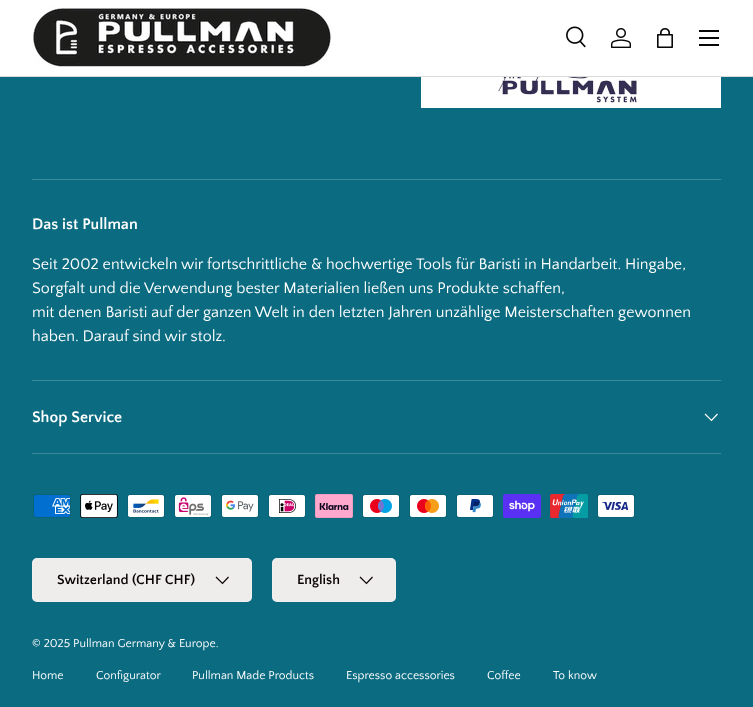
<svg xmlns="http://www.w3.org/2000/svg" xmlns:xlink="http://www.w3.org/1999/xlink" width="753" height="707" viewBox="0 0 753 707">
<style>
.cls-1{font:bold 16px Quattrocento Sans;fill:#ffffff}
.cls-2{font:16px Quattrocento Sans;fill:#ffffff}
.cls-3{font:bold 14px Quattrocento Sans;fill:#090302}
.cls-4{font:12px Quattrocento Sans;fill:#ffffff}
</style>
<rect width="100%" height="100%" fill="#0b6b80"/>
<rect fill="#ffffff" x="0" y="0" width="753" height="76"/>
<rect fill="#dadada" x="0" y="76" width="753" height="1"/>
<image xlink:href="image0.png" x="32" y="7" width="300" height="61"/>
<image xlink:href="image1.png" x="566" y="26" width="20" height="22"/>
<image xlink:href="image2.png" x="611" y="28" width="20" height="20"/>
<image xlink:href="image3.png" x="657" y="28" width="16" height="20"/>
<rect fill="#070707" x="699" y="30" width="20" height="2"/>
<rect fill="#070707" x="699" y="44" width="20" height="2"/>
<rect fill="#070707" x="699" y="37" width="20" height="2"/>
<image xlink:href="image4.png" x="421" y="77" width="300" height="31"/>
<rect fill="#3c8999" x="32" y="179" width="689" height="1"/>
<rect fill="#3c8999" x="32" y="380" width="689" height="1"/>
<rect fill="#3c8999" x="32" y="453" width="689" height="1"/>
<path fill="none" stroke="#ffffff" stroke-width="1.2" d="M717.5 414L711.5 420.5L705 414"/>
<image xlink:href="image5.png" x="33" y="494" width="38" height="24"/>
<image xlink:href="image6.png" x="80" y="494" width="38" height="24"/>
<image xlink:href="image7.png" x="127" y="494" width="38" height="24"/>
<image xlink:href="image8.png" x="174" y="494" width="38" height="24"/>
<image xlink:href="image9.png" x="221" y="494" width="38" height="24"/>
<image xlink:href="image10.png" x="268" y="494" width="38" height="24"/>
<image xlink:href="image11.png" x="315" y="494" width="38" height="24"/>
<image xlink:href="image12.png" x="362" y="494" width="38" height="24"/>
<image xlink:href="image13.png" x="409" y="494" width="38" height="24"/>
<image xlink:href="image14.png" x="456" y="494" width="38" height="24"/>
<image xlink:href="image15.png" x="503" y="494" width="38" height="24"/>
<image xlink:href="image16.png" x="550" y="494" width="38" height="24"/>
<image xlink:href="image17.png" x="597" y="494" width="38" height="24"/>
<rect fill="#efecec" x="32" y="558" width="220" height="44" rx="5"/>
<rect fill="none" stroke="#ffffff" stroke-opacity="0.2" x="32.5" y="558.5" width="219" height="43" rx="4.5"/>
<path fill="none" stroke="#090302" stroke-width="1.2" d="M228.5 577L222.5 583.5L216 577"/>
<rect fill="#efecec" x="272" y="558" width="124" height="44" rx="5"/>
<rect fill="none" stroke="#ffffff" stroke-opacity="0.2" x="272.5" y="558.5" width="123" height="43" rx="4.5"/>
<path fill="none" stroke="#090302" stroke-width="1.2" d="M372.5 577L366.5 583.5L360 577"/>
<text class="cls-1" x="32" y="229">Das ist Pullman</text>
<text class="cls-2"><tspan x="32" y="269">Seit 2002 entwickeln wir fortschrittliche &amp; hochwertige Tools für Baristi in Handarbeit. Hingabe,</tspan><tspan x="32" y="293">Sorgfalt und die Verwendung bester Materialien ließen uns Produkte schaffen,</tspan><tspan x="32" y="317">mit denen Baristi auf der ganzen Welt in den letzten Jahren unzählige Meisterschaften gewonnen</tspan><tspan x="32" y="341">haben. Darauf sind wir stolz.</tspan></text>
<text class="cls-1" x="32" y="422">Shop Service</text>
<text class="cls-3" x="57" y="584">Switzerland (CHF CHF)</text>
<text class="cls-3" x="297" y="584">English</text>
<text class="cls-4" x="32" y="647">© 2025 Pullman Germany &amp; Europe.</text>
<text class="cls-4" x="32" y="679">Home</text>
<text class="cls-4" x="96" y="679">Configurator</text>
<text class="cls-4" x="192" y="679">Pullman Made Products</text>
<text class="cls-4" x="346" y="679">Espresso accessories</text>
<text class="cls-4" x="487" y="679">Coffee</text>
<text class="cls-4" x="553" y="679">To know</text>
</svg>
